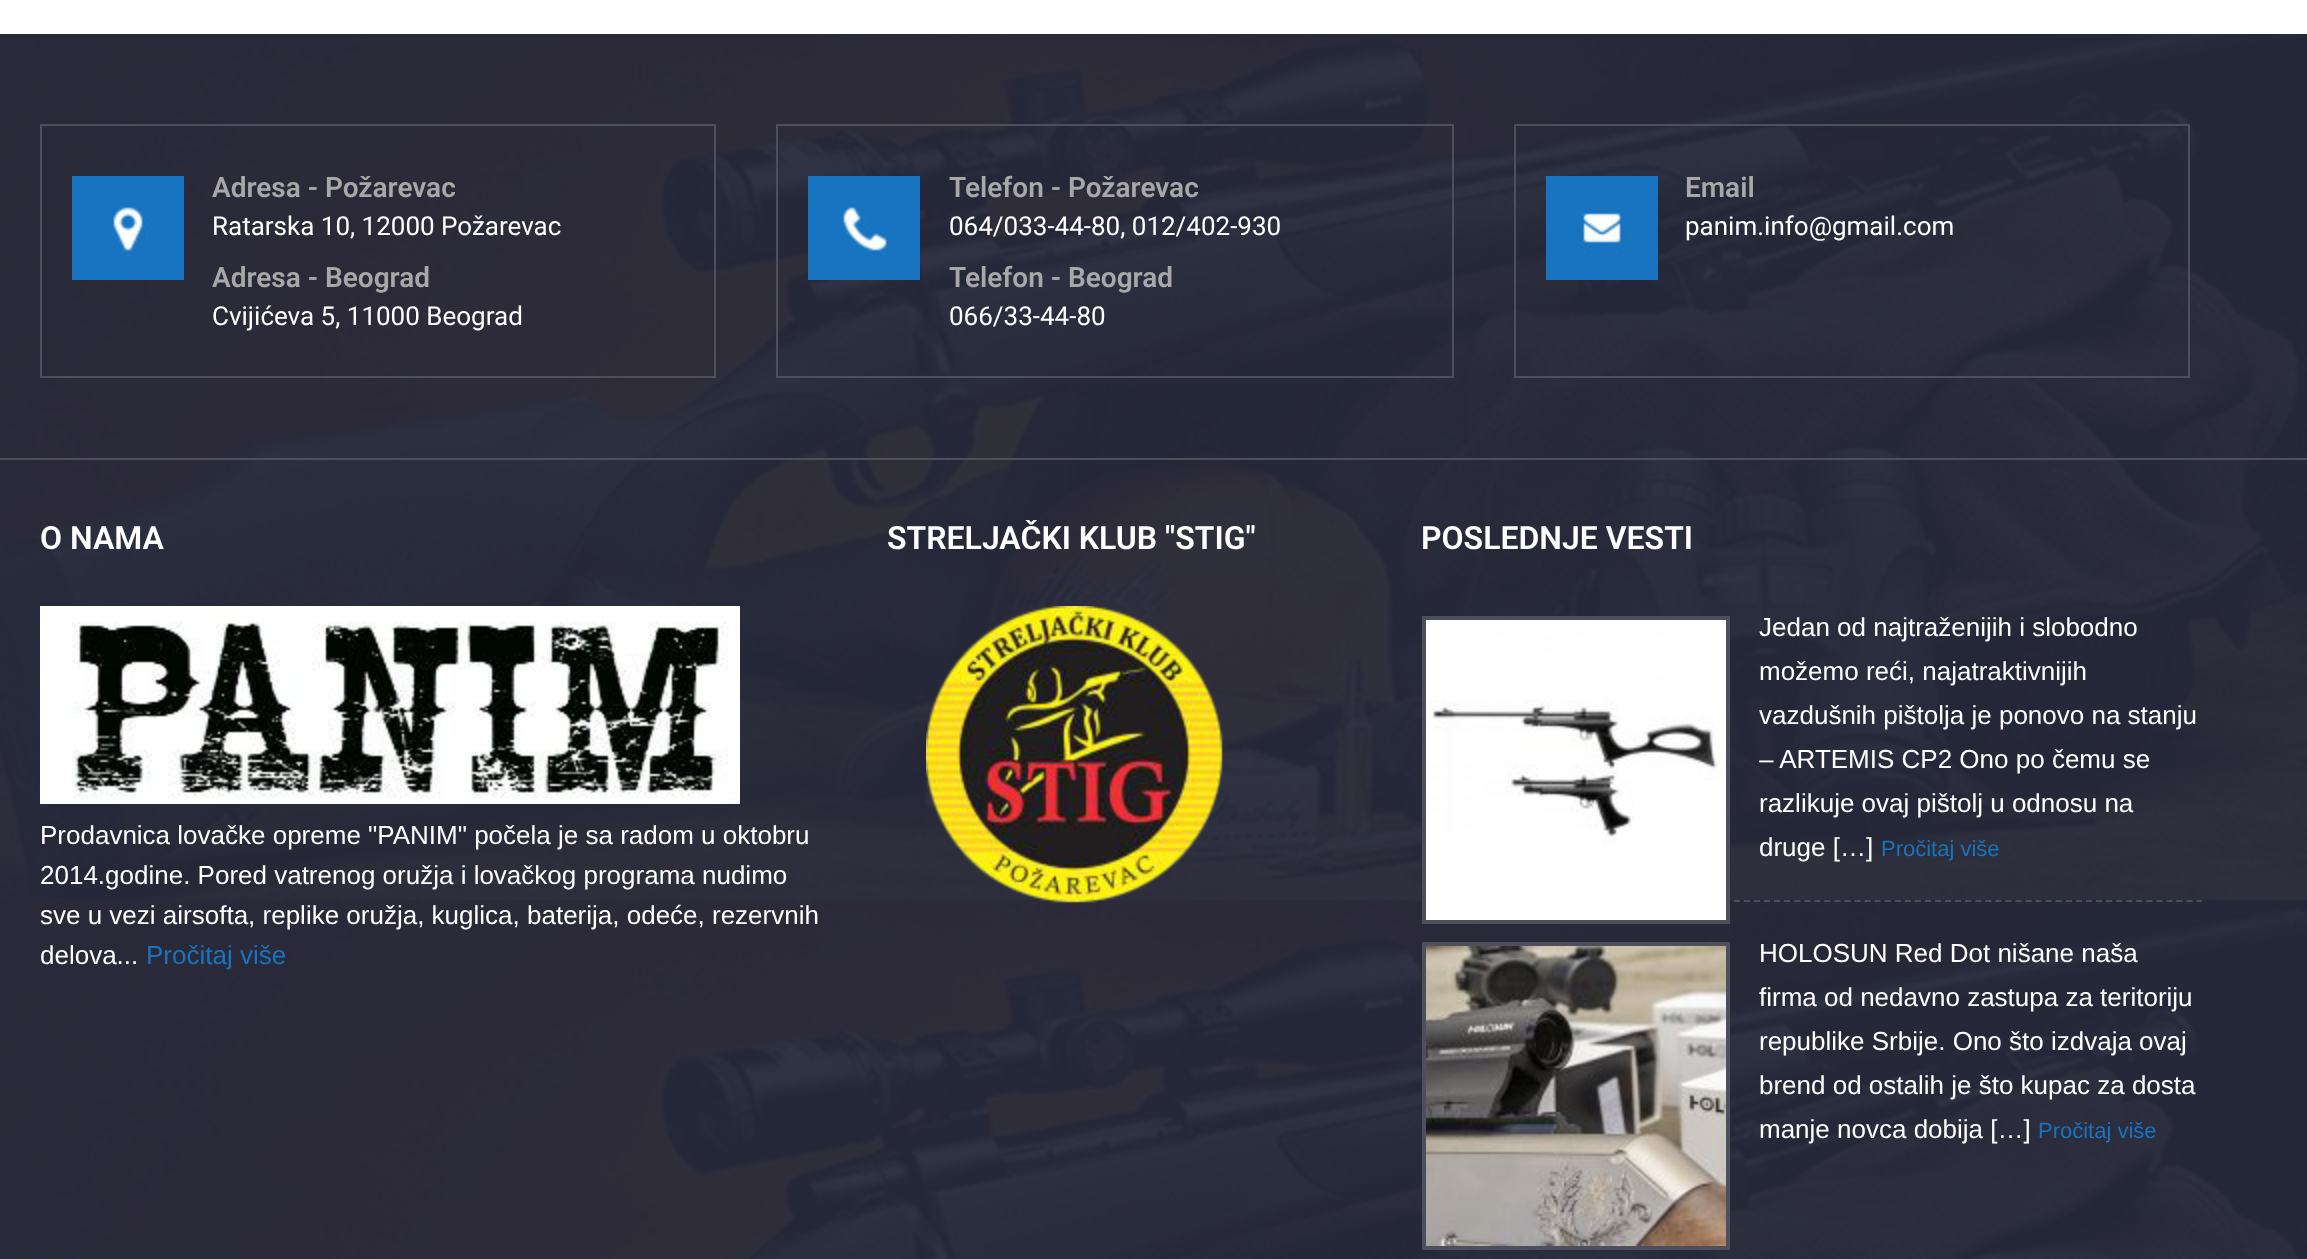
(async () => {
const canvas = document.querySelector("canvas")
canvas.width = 2307
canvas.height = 1259
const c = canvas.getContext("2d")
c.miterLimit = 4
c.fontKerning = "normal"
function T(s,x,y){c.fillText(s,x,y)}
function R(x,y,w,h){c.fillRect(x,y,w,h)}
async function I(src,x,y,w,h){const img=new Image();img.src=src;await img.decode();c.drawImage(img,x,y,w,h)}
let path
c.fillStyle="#fff"
R(0,0,2307,1259)
await I("1.png",0,34,2307,1225)
c.fillStyle="#4d4f5b"
R(0,458,2307,2)
c.strokeStyle="#4d4f5b"
c.lineWidth=2
c.strokeRect(41,125,674,252)
await I("2.png",72,176,112,104)
c.font="600 28px Roboto"
c.fillStyle="#a8a8a8"
T("Adresa - Požarevac",212,197)
c.font="26px Roboto"
c.fillStyle="#fff"
T("Ratarska 10, 12000 Požarevac",212,235)
c.font="600 28px Roboto"
c.fillStyle="#a8a8a8"
T("Adresa - Beograd",212,287)
c.font="26px Roboto"
c.fillStyle="#fff"
T("Cvijićeva 5, 11000 Beograd",212,325)
c.strokeRect(777,125,676,252)
await I("3.png",808,176,112,104)
c.font="600 28px Roboto"
c.fillStyle="#a8a8a8"
T("Telefon - Požarevac",949,197)
c.font="26px Roboto"
c.fillStyle="#fff"
T("064/033-44-80, 012/402-930",949,235)
c.font="600 28px Roboto"
c.fillStyle="#a8a8a8"
T("Telefon - Beograd",949,287)
c.font="26px Roboto"
c.fillStyle="#fff"
T("066/33-44-80",949,325)
c.strokeRect(1515,125,674,252)
await I("4.png",1546,176,112,104)
c.font="600 28px Roboto"
c.fillStyle="#a8a8a8"
T("Email",1685,197)
c.font="26px Roboto"
c.fillStyle="#fff"
T("panim.info@gmail.com",1685,235)
c.font="600 32px Roboto"
T("O NAMA",40,549)
await I("5.png",40,606,700,198)
c.font="26px Liberation Sans"
T("Prodavnica lovačke opreme \"PANIM\" počela je sa radom u oktobru",40,844)
T("2014.godine. Pored vatrenog oružja i lovačkog programa nudimo",40,884)
T("sve u vezi airsofta, replike oružja, kuglica, baterija, odeće, rezervnih",40,924)
T("delova...",40,964)
c.fillStyle="#1874c1"
T("Pročitaj više",146,964)
c.font="600 32px Roboto"
c.fillStyle="#fff"
T("STRELJAČKI KLUB \"STIG\"",887,549)
await I("6.png",926,606,297,297)
T("POSLEDNJE VESTI",1421,549)
path = new Path2D("M1422 901h780")
c.setLineDash([6,4.06])
c.stroke(path)
c.lineWidth=4
c.setLineDash([])
c.strokeRect(1424,618,304,304)
await I("7.png",1426,620,300,300)
c.font="26px Liberation Sans"
T("Jedan od najtraženijih i slobodno",1759,636)
T("možemo reći, najatraktivnijih",1759,680)
T("vazdušnih pištolja je ponovo na stanju",1759,724)
T("– ARTEMIS CP2 Ono po čemu se",1759,768)
T("razlikuje ovaj pištolj u odnosu na",1759,812)
T("druge […]",1759,856)
c.font="22px Liberation Sans"
c.fillStyle="#1874c1"
T("Pročitaj više",1881,856)
c.strokeRect(1424,944,304,304)
await I("8.png",1426,946,300,300)
c.font="26px Liberation Sans"
c.fillStyle="#fff"
T("HOLOSUN Red Dot nišane naša",1759,962)
T("firma od nedavno zastupa za teritoriju",1759,1006)
T("republike Srbije. Ono što izdvaja ovaj",1759,1050)
T("brend od ostalih je što kupac za dosta",1759,1094)
T("manje novca dobija […]",1759,1138)
c.font="22px Liberation Sans"
c.fillStyle="#1874c1"
T("Pročitaj više",2038,1138)
})()
